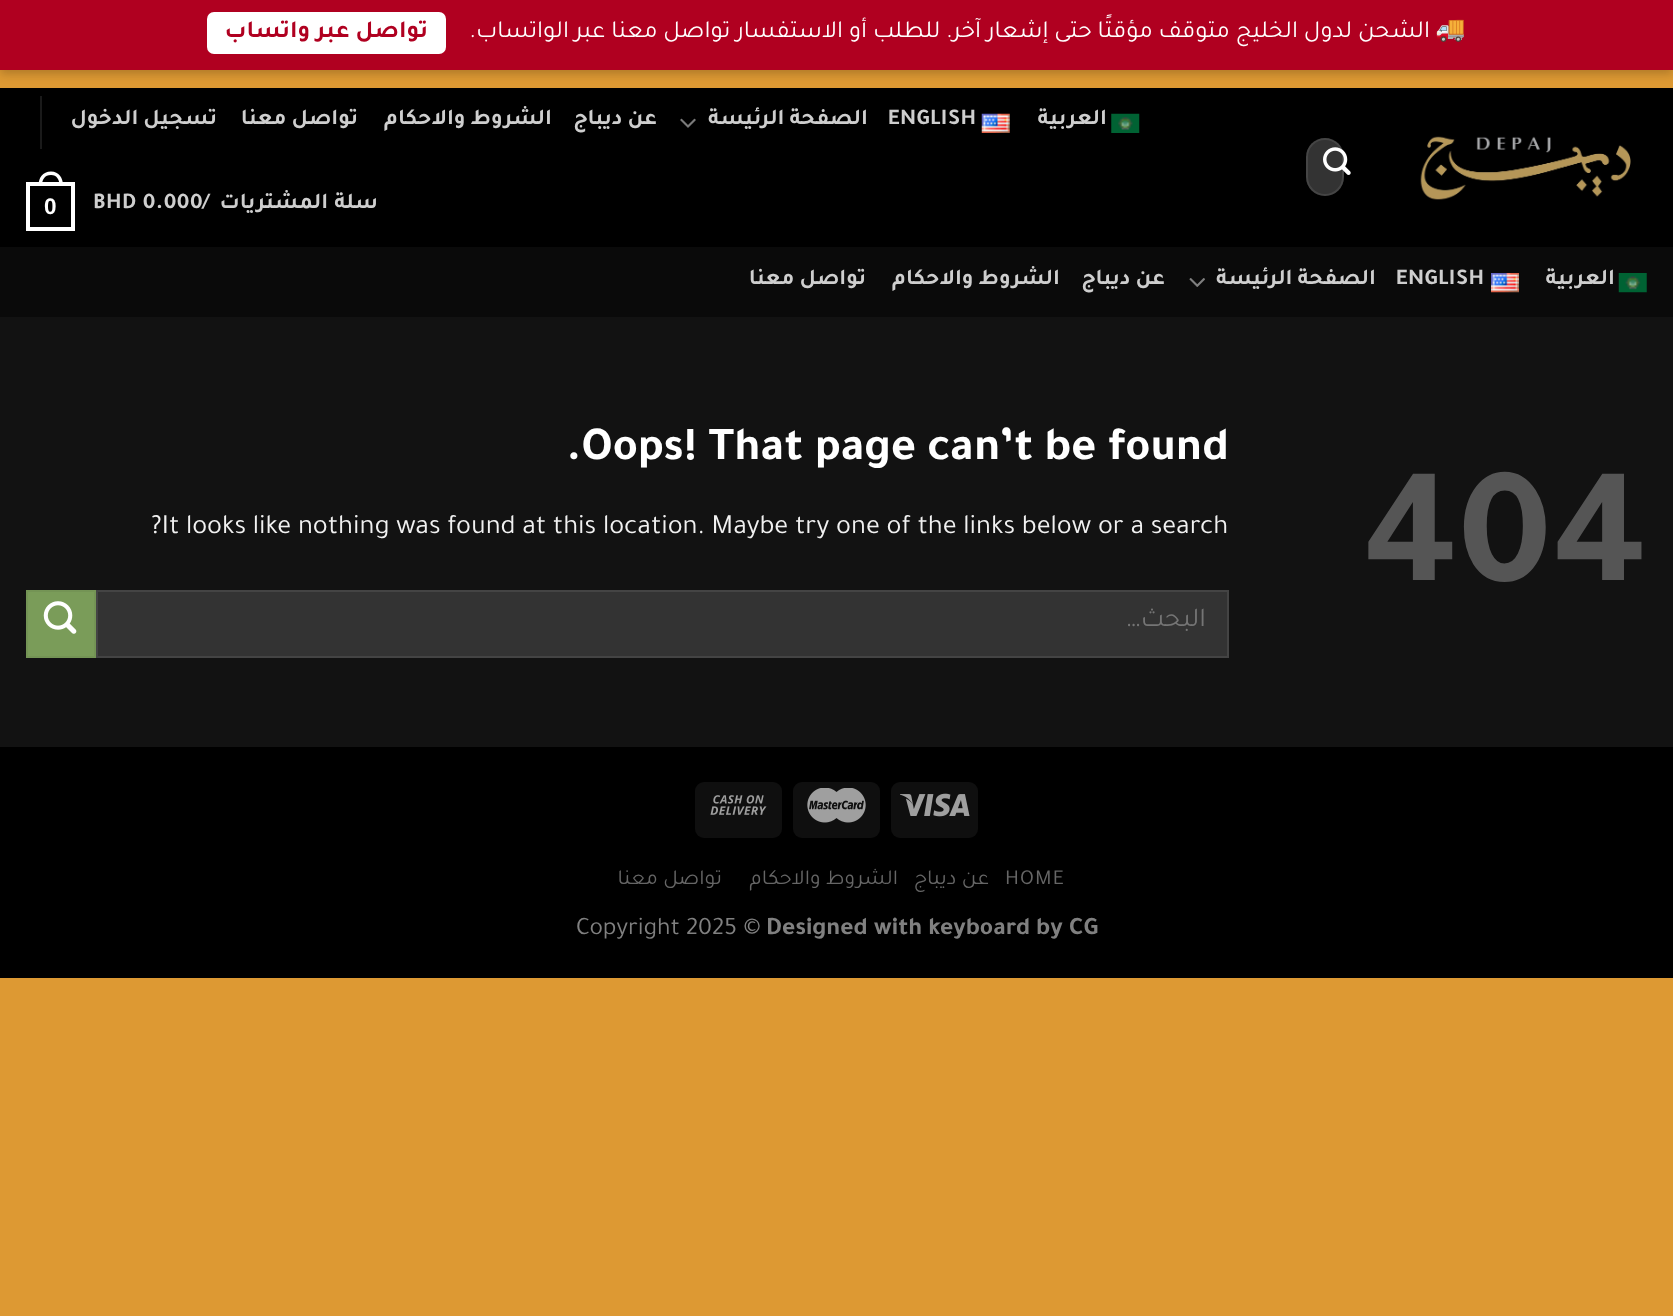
(async () => {
const canvas = document.querySelector("canvas")
canvas.width = 1673
canvas.height = 1316
const c = canvas.getContext("2d")
c.miterLimit = 4
c.fontKerning = "normal"
function T(s,x,y){c.fillText(s,x,y)}
function R(x,y,w,h){c.fillRect(x,y,w,h)}
function Q(x,y,w,h,r){c.beginPath();c.roundRect(x,y,w,h,r);c.fill()}
async function I(src,x,y,w,h){const img=new Image();img.src=src;await img.decode();c.drawImage(img,x,y,w,h)}
let path
c.fillStyle="#d93"
R(0,0,1673,1316)
c.fillStyle="#000"
R(0,88,1673,159)
c.fillStyle="#00000033"
c.filter="blur(5px)"
c.beginPath()
c.rect(0,4,1673,70)
c.fill()
c.filter="none"
c.fillStyle="#b00020"
R(0,0,1673,70)
c.direction="rtl"
c.font="24.5px Noto Color Emoji"
c.fillStyle="#fff"
T("🚚",1466,37)
c.font="24.5px Tajawal"
T("الشحن لدول الخليج متوقف مؤقتًا حتى إشعار آخر. للطلب أو الاستفسار تواصل معنا عبر الواتساب.",1430,37)
Q(207,12,239,42,7)
c.font="bold 24.5px Tajawal"
c.fillStyle="#b00020"
T("تواصل عبر واتساب",428,37)
c.fillStyle="#121212"
R(0,317,1673,430)
await I("1.png",1420,136,211,64)
c.fillStyle="#333"
Q(1306,138,38,58,19)
c.beginPath()
c.roundRect(1307,139,36,56,18)
c.strokeStyle="#ffffff17"
c.lineWidth=2
c.stroke()
await I("2.png",1323,147,28,28)
await I("3.png",1111,113,29,20)
c.letterSpacing="0.5px"
c.font="bold 22.5px Tajawal"
c.fillStyle="#cecece"
T("العربية",1107,124)
await I("4.png",981,113,29,20)
c.direction="ltr"
T("ENGLISH",888,124)
c.wordSpacing="-1px"
c.direction="rtl"
T("الصفحة الرئيسة",868,124)
await I("5.png",680,118,16,10)
T("عن ديباج",657,124)
T("الشروط والاحكام",552,124)
T("تواصل معنا",358,124)
T("تسجيل الدخول",217,124)
c.fillStyle="#1a1a1a"
R(40,96,2,53)
c.wordSpacing="0px"
c.fillStyle="#cecece"
T("سلة المشتريات",378,208)
c.direction="ltr"
T("/",202,208)
T("BHD 0.000",93,208)
c.strokeStyle="#fff"
c.lineWidth=4
c.strokeRect(28,184,45,45)
c.fillStyle="#fff"
path = new Path2D("M51 171.5c8 0 12 6.5 12 14h-24.5c0-7.5 4-14 12.5-14zm0 3.5c6 0 8.5 5 8.5 10.5h-17.5c0-5.5 2.5-10.5 9-10.5z")
c.fill(path,"evenodd")
c.font="bold 22.5px Liberation Sans"
T("0",44,214)
c.fillStyle="#0a0a0a"
R(0,247,1673,70)
await I("6.png",1618,273,29,20)
c.direction="rtl"
c.font="bold 22.5px Tajawal"
c.fillStyle="#cecece"
T("العربية",1615,284)
await I("7.png",1491,273,28,20)
c.direction="ltr"
T("ENGLISH",1396,284)
c.wordSpacing="-1px"
c.direction="rtl"
T("الصفحة الرئيسة",1376,284)
await I("8.png",1189,278,16,9)
T("عن ديباج",1165,284)
T("الشروط والاحكام",1060,284)
T("تواصل معنا",866,284)
c.letterSpacing="0px"
c.wordSpacing="0px"
c.direction="ltr"
c.font="bold 168px Tajawal"
c.fillStyle="#555"
T("404",1363,580)
c.font="bold 47.6px Tajawal"
c.fillStyle="#fff"
T(".Oops! That page can’t be found",566,459)
c.font="28px Tajawal"
c.fillStyle="#f1f1f1"
T("?It looks like nothing was found at this location. Maybe try one of the links below or a search",151,533)
c.fillStyle="#333"
c.beginPath()
c.rect(97,591,1131,66)
c.fill()
c.strokeStyle="#444"
c.lineWidth=2
c.stroke()
c.direction="rtl"
c.font="27px Tajawal"
c.fillStyle="#757575"
T("البحث…",1206,626)
c.fillStyle="#7a9c59"
c.beginPath()
c.rect(27,591,68,66)
c.fill()
c.strokeStyle="#749455"
c.stroke()
await I("9.png",43,601,34,33)
c.fillStyle="#000"
R(0,747,1673,231)
c.fillStyle="#0f0f0f"
Q(891,782,87,56,9)
await I("10.png",900,793,70,24)
Q(793,782,87,56,9)
await I("11.png",807,788,59,35)
Q(695,782,87,56,9)
await I("12.png",710,795,57,20)
c.letterSpacing="1.1px"
c.direction="ltr"
c.font="21.5px Tajawal"
c.fillStyle="#666"
T("HOME",1005,884)
c.wordSpacing="-1px"
c.direction="rtl"
T("عن ديباج",989,884)
T("الشروط والاحكام",898,884)
T("تواصل معنا",722,884)
c.letterSpacing="0px"
c.wordSpacing="0px"
c.direction="ltr"
c.font="bold 25.25px Tajawal"
c.fillStyle="#808080"
T("Designed with keyboard by CG",766,934)
c.font="25.25px Tajawal"
T("Copyright 2025 ©",576,934)
})()
